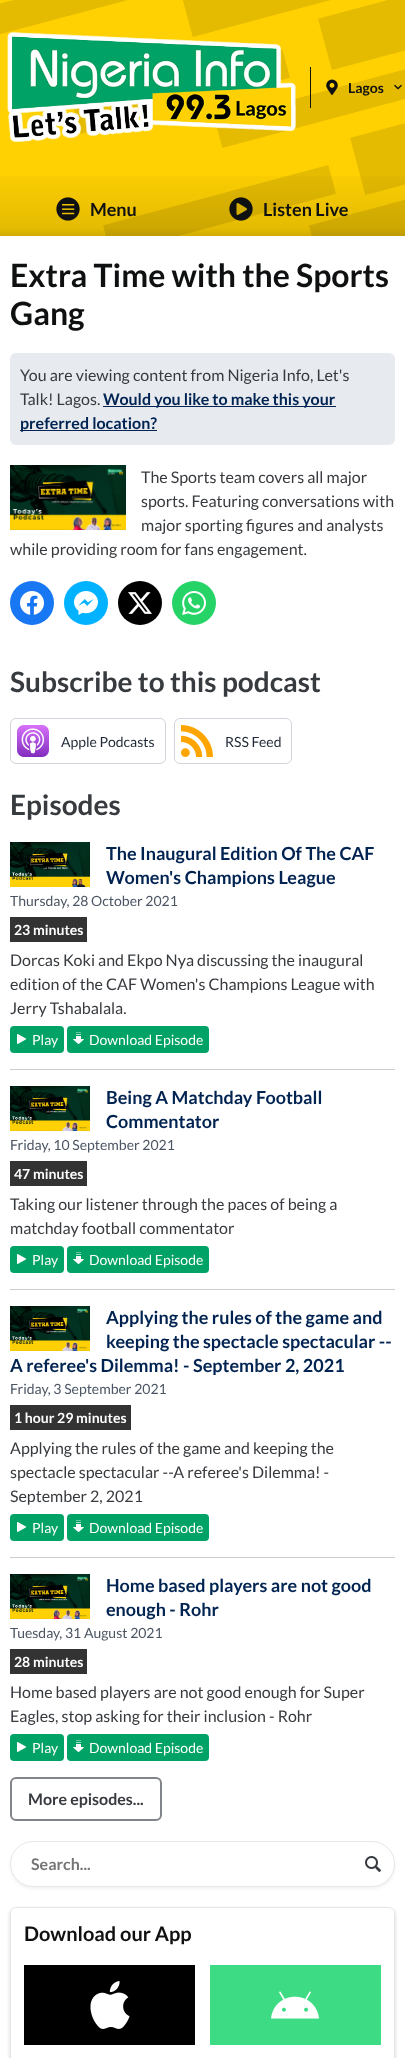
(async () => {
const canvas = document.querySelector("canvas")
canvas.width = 405
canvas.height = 2058
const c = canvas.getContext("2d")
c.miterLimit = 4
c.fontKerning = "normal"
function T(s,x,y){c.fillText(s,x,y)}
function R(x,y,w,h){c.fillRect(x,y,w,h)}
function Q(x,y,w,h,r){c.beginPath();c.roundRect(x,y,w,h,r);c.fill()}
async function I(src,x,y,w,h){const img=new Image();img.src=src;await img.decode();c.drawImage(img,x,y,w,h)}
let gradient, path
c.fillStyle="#fff"
R(0,0,405,2058)
c.fillStyle="#ffd102"
R(0,0,405,236)
await I("1.png",0,0,405,236)
await I("2.png",7,32,289,110)
c.fillStyle="#0f1011"
R(310,67,1,41)
await I("3.png",326,79,12,16)
c.font="bold 14px Lato"
T("Lagos",348,93)
await I("4.png",394,84,8,6)
gradient = c.createLinearGradient(203,162,203,236)
gradient.addColorStop(0,"#00000000")
gradient.addColorStop(.89,"#0000001a")
gradient.addColorStop(1,"#0000002e")
c.fillStyle = gradient
R(0,176,405,60)
await I("5.png",56,197,24,24)
c.font="bold 18px Lato"
c.fillStyle="#0f1011"
T("Menu",90,216)
await I("6.png",229,197,24,24)
T("Listen Live",263,216)
c.font="bold 32px Lato"
T("Extra Time with the Sports",10,287)
T("Gang",10,325)
c.fillStyle="#e7eaef"
Q(10,353,385,92,6)
c.font="16px Lato"
c.fillStyle="#373a3e"
T("You are viewing content from Nigeria Info, Let's",20,381)
T("Talk! Lagos.",20,405)
c.fillStyle="#002351"
R(103,406,233,1)
c.font="bold 16px Lato"
T("Would you like to make this your",103,405)
R(20,430,137,1)
T("preferred location?",20,429)
await I("7.png",10,465,116,65)
c.font="16px Lato"
c.fillStyle="#373a3e"
T("The Sports team covers all major",141,483)
T("sports. Featuring conversations with",141,507)
T("major sporting figures and analysts",141,531)
T("while providing room for fans engagement.",10,555)
c.fillStyle="#1877f2"
c.beginPath()
c.arc(32,603,22,0,7)
c.fill()
await I("8.png",20,591,24,24)
c.fillStyle="#00b2ff"
c.beginPath()
c.arc(86,603,22,0,7)
c.fill()
await I("9.png",74,591,24,24)
c.fillStyle="#000"
c.beginPath()
c.arc(140,603,22,0,7)
c.fill()
await I("10.png",128,592,24,22)
c.fillStyle="#25d366"
c.beginPath()
c.arc(194,603,22,0,7)
c.fill()
await I("11.png",182,591,24,24)
c.font="bold 28px Lato"
c.fillStyle="#373a3e"
T("Subscribe to this podcast",10,692)
c.beginPath()
c.roundRect(10.5,718.5,155,45,5.5)
c.strokeStyle="#d1d5db"
c.stroke()
await I("12.png",17,725,32,32)
c.font="14px Lato"
c.fillStyle="#1f2937"
T("Apple Podcasts",61,747)
c.beginPath()
c.roundRect(174.5,718.5,117,45,5.5)
c.stroke()
await I("13.png",181,725,32,32)
T("RSS Feed",225,747)
c.font="bold 28px Lato"
c.fillStyle="#373a3e"
T("Episodes",10,815)
await I("14.png",10,842,80,45)
c.font="bold 18px Lato"
c.fillStyle="#002351"
T("The Inaugural Edition Of The CAF",106,860)
T("Women's Champions League",106,884)
c.font="14px Lato"
c.fillStyle="#4b5563"
T("Thursday, 28 October 2021",10,906)
c.fillStyle="#333"
R(10,917,77,25)
c.font="bold 14px Lato"
c.fillStyle="#fff"
T("23 minutes",14,935)
c.font="16px Lato"
c.fillStyle="#373a3e"
T("Dorcas Koki and Ekpo Nya discussing the inaugural",10,966)
T("edition of the CAF Women's Champions League with",10,990)
T("Jerry Tshabalala.",10,1014)
c.fillStyle="#00a365"
Q(10,1026,54,27,4)
await I("15.png",17,1034,10,10)
c.font="14px Lato"
c.fillStyle="#fff"
T("Play",32,1045)
c.fillStyle="#00a365"
Q(67,1026,142,27,4)
await I("16.png",73,1032,11,12)
c.fillStyle="#fff"
T("Download Episode",89,1045)
c.fillStyle="#ccc"
R(10,1069,385,1)
await I("17.png",10,1086,80,45)
c.font="bold 18px Lato"
c.fillStyle="#002351"
T("Being A Matchday Football",106,1104)
T("Commentator",106,1128)
c.font="14px Lato"
c.fillStyle="#4b5563"
T("Friday, 10 September 2021",10,1150)
c.fillStyle="#333"
R(10,1161,77,25)
c.font="bold 14px Lato"
c.fillStyle="#fff"
T("47 minutes",14,1179)
c.font="16px Lato"
c.fillStyle="#373a3e"
T("Taking our listener through the paces of being a",10,1210)
T("matchday football commentator",10,1234)
c.fillStyle="#00a365"
Q(10,1246,54,27,4)
await I("15.png",17,1254,10,10)
c.font="14px Lato"
c.fillStyle="#fff"
T("Play",32,1265)
c.fillStyle="#00a365"
Q(67,1246,142,27,4)
await I("16.png",73,1252,11,12)
c.fillStyle="#fff"
T("Download Episode",89,1265)
c.fillStyle="#ccc"
R(10,1289,385,1)
await I("17.png",10,1306,80,45)
c.font="bold 18px Lato"
c.fillStyle="#002351"
T("Applying the rules of the game and",106,1324)
T("keeping the spectacle spectacular --",106,1348)
T("A referee's Dilemma! - September 2, 2021",10,1372)
c.font="14px Lato"
c.fillStyle="#4b5563"
T("Friday, 3 September 2021",10,1394)
c.fillStyle="#333"
R(10,1405,121,25)
c.font="bold 14px Lato"
c.fillStyle="#fff"
T("1 hour 29 minutes",14,1423)
c.font="16px Lato"
c.fillStyle="#373a3e"
T("Applying the rules of the game and keeping the",10,1454)
T("spectacle spectacular --A referee's Dilemma! -",10,1478)
T("September 2, 2021",10,1502)
c.fillStyle="#00a365"
Q(10,1514,54,27,4)
await I("15.png",17,1522,10,10)
c.font="14px Lato"
c.fillStyle="#fff"
T("Play",32,1533)
c.fillStyle="#00a365"
Q(67,1514,142,27,4)
await I("16.png",73,1520,11,12)
c.fillStyle="#fff"
T("Download Episode",89,1533)
c.fillStyle="#ccc"
R(10,1557,385,1)
await I("18.png",10,1574,80,45)
c.font="bold 18px Lato"
c.fillStyle="#002351"
T("Home based players are not good",106,1592)
T("enough - Rohr",106,1616)
c.font="14px Lato"
c.fillStyle="#4b5563"
T("Tuesday, 31 August 2021",10,1638)
c.fillStyle="#333"
R(10,1649,77,25)
c.font="bold 14px Lato"
c.fillStyle="#fff"
T("28 minutes",14,1667)
c.font="16px Lato"
c.fillStyle="#373a3e"
T("Home based players are not good enough for Super",10,1698)
T("Eagles, stop asking for their inclusion - Rohr",10,1722)
c.fillStyle="#00a365"
Q(10,1734,54,27,4)
await I("15.png",17,1742,10,10)
c.font="14px Lato"
c.fillStyle="#fff"
T("Play",32,1753)
c.fillStyle="#00a365"
Q(67,1734,142,27,4)
await I("16.png",73,1740,11,12)
c.fillStyle="#fff"
T("Download Episode",89,1753)
c.beginPath()
c.roundRect(11,1778,150,42,5)
c.strokeStyle="#818488"
c.lineWidth=2
c.stroke()
c.font="bold 16px Lato"
c.fillStyle="#373a3e"
T("More episodes...",28,1805)
c.fillStyle="#0000000d"
c.filter="blur(1.5px)"
c.beginPath()
c.roundRect(10,1843,385,46,23)
c.fill()
c.filter="none"
c.fillStyle="#fff"
c.beginPath()
c.roundRect(10.5,1841.5,384,45,22.5)
c.fill()
c.strokeStyle="#e8e6e6"
c.lineWidth=1
c.stroke()
c.fillStyle="#757575"
T("Search...",31,1870)
await I("19.png",365,1856,16,16)
c.save()
path = new Path2D("M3 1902h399v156h-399zm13 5h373c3.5 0 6 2.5 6 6v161c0 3.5-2.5 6-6 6h-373c-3.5 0-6-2.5-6-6v-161c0-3.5 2.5-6 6-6z")
c.clip(path,"evenodd")
c.fillStyle="#0000001a"
c.filter="blur(1.5px)"
c.beginPath()
c.roundRect(9,1908,387,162,7)
c.fill()
c.filter="none"
c.restore()
c.beginPath()
c.roundRect(10.5,1907.5,384,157,5.5)
c.stroke()
c.font="bold 20px Lato"
c.fillStyle="#0f1011"
T("Download our App",24,1941)
c.fillStyle="#000"
R(24,1965,171,80)
await I("20.png",90,1981,40,48)
c.fillStyle="#3ddc84"
R(210,1965,171,80)
await I("21.png",271,1991,48,28)
})()
